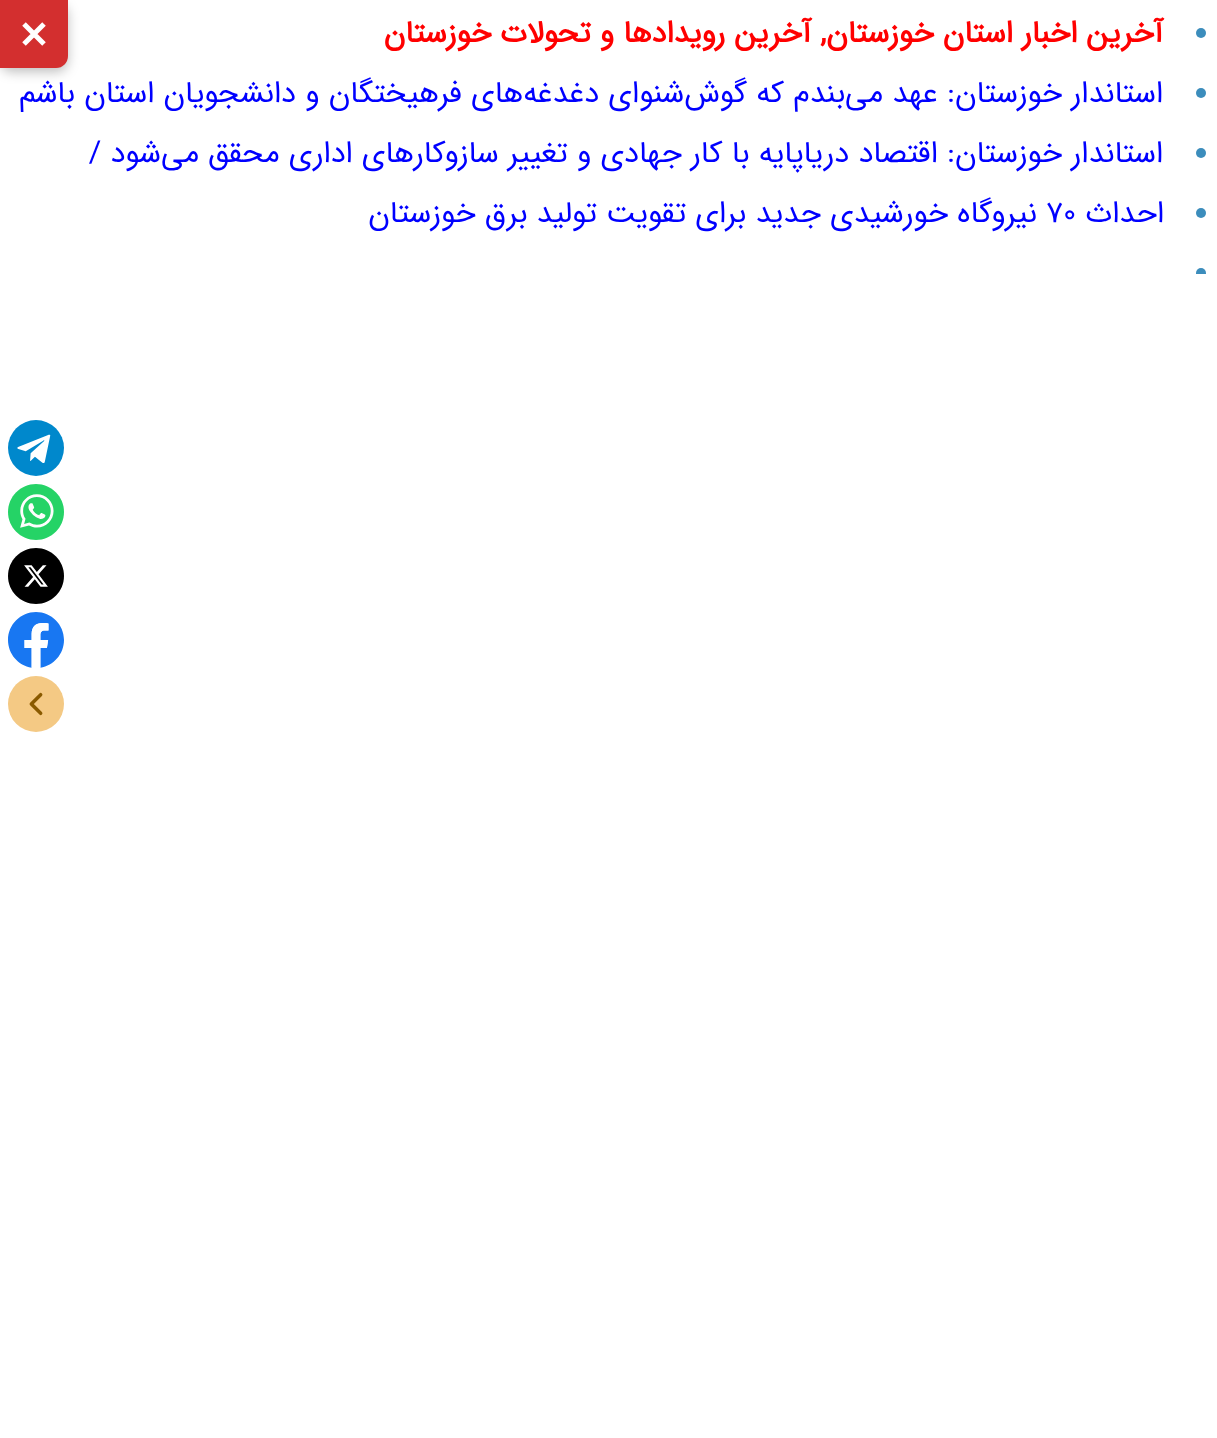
(async () => {
const canvas = document.querySelector("canvas")
canvas.width = 1217
canvas.height = 1438
const c = canvas.getContext("2d")
c.miterLimit = 4
c.fontKerning = "normal"
function T(s,x,y){c.fillText(s,x,y)}
function R(x,y,w,h){c.fillRect(x,y,w,h)}
async function I(src,x,y,w,h){const img=new Image();img.src=src;await img.decode();c.drawImage(img,x,y,w,h)}
let path
c.fillStyle="#fff"
R(0,0,1217,1438)
c.fillStyle="#00000040"
c.filter="blur(6px)"
c.beginPath()
c.roundRect(0,4,68,68,12)
c.fill()
c.filter="none"
c.fillStyle="#d32f2f"
c.beginPath()
c.roundRect(0,0,68,68,[0,0,12,0])
c.fill()
path = new Path2D("M44 24l-20 20m0-20l20 20")
c.strokeStyle="#fff"
c.lineWidth=5
c.stroke(path)
c.fillStyle="#3c8dbc"
c.beginPath()
c.arc(1201,33,5,0,7)
c.fill()
c.direction="rtl"
c.font="bold 30.4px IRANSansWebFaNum"
c.fillStyle="#f00"
T("آخرین اخبار استان خوزستان, آخرین رویدادها و تحولات خوزستان",1163,42)
c.fillStyle="#3c8dbc"
c.beginPath()
c.arc(1201,93,5,0,7)
c.fill()
c.font="30.4px IRANSansWebFaNum"
c.fillStyle="#00f"
T("استاندار خوزستان: عهد می‌بندم که گوش‌شنوای دغدغه‌های فرهیختگان و دانشجویان استان باشم",1163,102)
c.fillStyle="#3c8dbc"
c.beginPath()
c.arc(1201,153,5,0,7)
c.fill()
c.fillStyle="#00f"
T("استاندار خوزستان: اقتصاد دریاپایه با کار جهادی و تغییر سازوکارهای اداری محقق می‌شود /",1163,162)
c.fillStyle="#3c8dbc"
c.beginPath()
c.arc(1201,213,5,0,7)
c.fill()
c.fillStyle="#00f"
T("احداث",1164,222)
c.direction="ltr"
T("۷۰",1046,222)
c.direction="rtl"
T("نیروگاه خورشیدی جدید برای تقویت تولید برق خوزستان",1037,222)
c.save()
c.beginPath()
c.rect(0,0,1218,274)
c.clip()
c.fillStyle="#3c8dbc"
c.beginPath()
c.arc(1201,273,5,0,7)
c.fill()
c.restore()
await I("1.png",8,420,56,56)
await I("2.png",8,484,56,56)
await I("3.png",8,548,56,56)
await I("4.png",8,612,56,56)
await I("5.png",8,676,56,56)
})()
